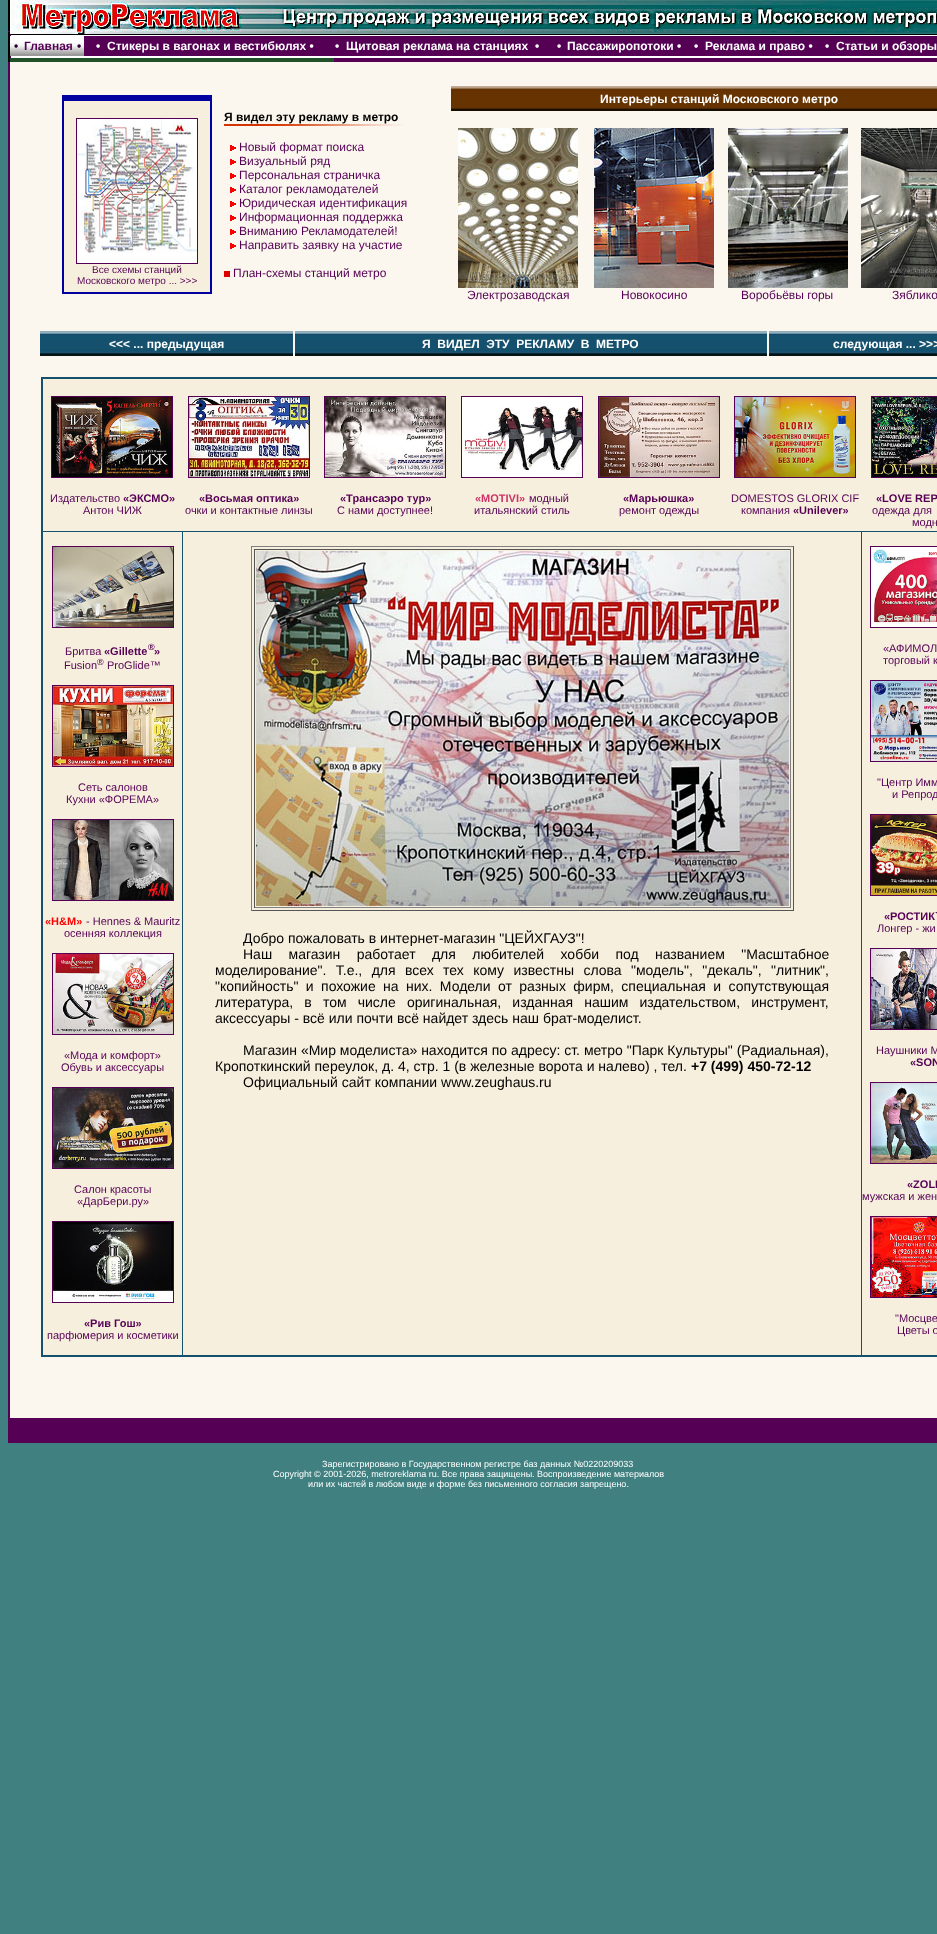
(async () => {
const canvas = document.querySelector("canvas")
canvas.width = 937
canvas.height = 1934
const c = canvas.getContext("2d")
c.miterLimit = 4
c.fontKerning = "normal"
function T(s,x,y){c.fillText(s,x,y)}
function R(x,y,w,h){c.fillRect(x,y,w,h)}
async function I(src,x,y,w,h){const img=new Image();img.src=src;await img.decode();c.drawImage(img,x,y,w,h)}
c.fillStyle="#408080"
R(0,0,937,1934)
c.fillStyle="#fbf7ee"
R(10,62,927,1356)
c.fillStyle="#000"
R(8,0,2,62)
c.fillStyle="#570155"
R(8,31,2,1)
c.fillStyle="#505"
R(84,36,853,20)
await I("1.png",10,0,927,34)
c.fillStyle="#000"
R(10,34,927,1)
c.fillStyle="#fff"
R(10,35,927,1)
c.fillStyle="#570155"
R(10,34,1,2)
await I("2.png",10,36,74,20)
c.font="bold 12px Liberation Sans"
c.fillStyle="#2b002b"
T("•",14,50)
c.fillStyle="#505"
T("Главная",24,50)
c.fillStyle="#2b002b"
T("•",77,50)
c.fillStyle="#fff"
T("•",96,50)
T("Стикеры в вагонах и вестибюлях •",107,50)
T("•",335,50)
T("Щитовая реклама на станциях  •",346,50)
T("•",557,50)
T("Пассажиропотоки •",567,50)
T("•",694,50)
T("Реклама и право •",705,50)
T("•",825,50)
T("Статьи и обзоры",836,50)
R(10,56,927,2)
c.fillStyle="#570155"
R(10,56,1,2)
c.fillStyle="#215129"
R(10,58,324,4)
c.fillStyle="#570155"
R(334,58,603,4)
c.fillStyle="#505"
R(8,62,2,1381)
c.fillStyle="#0000a0"
R(62,95,150,199)
c.fillStyle="#f7efdd"
R(64,101,146,191)
c.strokeStyle="#505"
c.strokeRect(76.5,118.5,121,145)
await I("3.png",77,119,120,144)
c.font="10px Liberation Sans"
c.fillStyle="#505"
T("Все схемы станций",92,273)
T("Московского метро ... >>>",77,284)
c.font="bold 12px Liberation Sans"
c.fillStyle="#000"
T("Я видел эту рекламу в метро",224,121)
await I("4.png",224,124,180,2)
await I("5.png",230,145,6,6)
c.font="12px Liberation Sans"
c.fillStyle="#505"
T("Новый формат поиска",239,151)
await I("5.png",230,159,6,6)
T("Визуальный ряд",239,165)
await I("5.png",230,173,6,6)
T("Персональная страничка",239,179)
await I("5.png",230,187,6,6)
T("Каталог рекламодателей",239,193)
await I("5.png",230,201,6,6)
T("Юридическая идентификация",239,207)
await I("5.png",230,215,6,6)
T("Информационная поддержка",239,221)
await I("5.png",230,229,6,6)
T("Вниманию Рекламодателей!",239,235)
await I("5.png",230,243,6,6)
T("Направить заявку на участие",239,249)
c.fillStyle="#dc0000"
R(224,271,6,6)
c.fillStyle="#505"
T("План-схемы станций метро",233,277)
await I("6.png",451,86,486,25)
c.font="bold 12px Liberation Sans"
c.fillStyle="#fff"
T("Интерьеры станций Московского метро",600,103)
await I("7.png",458,128,120,160)
c.font="12px Liberation Sans"
c.fillStyle="#505"
T("Электрозаводская",467,299)
await I("8.png",594,128,120,160)
T("Новокосино",621,299)
await I("9.png",728,128,120,160)
T("Воробьёвы горы",741,299)
await I("10.png",861,128,76,160)
T("Зяблико",892,299)
await I("11.png",40,331,253,25)
c.font="bold 12px Liberation Sans"
c.fillStyle="#fff"
T("<<< ... предыдущая",109,348)
await I("12.png",295,331,472,25)
T("Я  ВИДЕЛ  ЭТУ  РЕКЛАМУ  В  МЕТРО",422,348)
await I("13.png",769,331,168,25)
T("следующая ... >>>",833,348)
c.fillStyle="#14516d"
R(41,377,896,980)
c.fillStyle="#f7efdd"
R(43,379,894,152)
c.strokeRect(51.5,396.5,121,81)
await I("14.png",52,397,120,80)
c.font="11px Liberation Sans"
c.fillStyle="#505"
T("Издательство",50,502)
c.font="bold 11px Liberation Sans"
T("«ЭКСМО»",123,502)
c.font="11px Liberation Sans"
T("Антон ЧИЖ",83,514)
c.strokeRect(188.5,396.5,121,81)
await I("15.png",189,397,120,80)
c.font="bold 11px Liberation Sans"
T("«Восьмая оптика»",199,502)
c.font="11px Liberation Sans"
T("очки и контактные линзы",185,514)
c.strokeRect(324.5,396.5,121,81)
await I("16.png",325,397,120,80)
c.font="bold 11px Liberation Sans"
T("«Трансаэро тур»",340,502)
c.font="11px Liberation Sans"
T("С нами доступнее!",337,514)
c.strokeRect(461.5,396.5,121,81)
await I("17.png",462,397,120,80)
c.font="bold 11px Liberation Sans"
c.fillStyle="#c36"
T("«MOTIVI»",475,502)
c.font="11px Liberation Sans"
c.fillStyle="#505"
T("модный",529,502)
T("итальянский стиль",474,514)
c.strokeRect(598.5,396.5,121,81)
await I("18.png",599,397,120,80)
c.font="bold 11px Liberation Sans"
T("«Марьюшка»",623,502)
c.font="11px Liberation Sans"
T("ремонт одежды",619,514)
c.strokeRect(734.5,396.5,121,81)
await I("19.png",735,397,120,80)
T("DOMESTOS GLORIX CIF",731,502)
T("компания",741,514)
c.font="bold 11px Liberation Sans"
T("«Unilever»",793,514)
c.strokeRect(871.5,396.5,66,81)
await I("20.png",872,397,65,80)
T("«LOVE REP",876,502)
c.font="11px Liberation Sans"
T("одежда для",872,514)
T("модн",912,526)
c.fillStyle="#f7efdd"
R(43,532,139,823)
c.strokeRect(52.5,546.5,121,81)
await I("21.png",53,547,120,80)
c.fillStyle="#505"
T("Бритва",65,655)
c.font="bold 11px Liberation Sans"
T("«Gillette",104,655)
c.font="bold 9px Liberation Sans"
T("®",148,650)
c.font="bold 11px Liberation Sans"
T("»",154,655)
c.font="11px Liberation Sans"
T("Fusion",64,669)
c.font="9px Liberation Sans"
T("®",97,665)
c.font="11px Liberation Sans"
T("ProGlide™",107,669)
c.strokeRect(52.5,685.5,121,81)
await I("22.png",53,686,120,80)
T("Сеть салонов",78,791)
T("Кухни «ФОРЕМА»",66,803)
c.strokeRect(52.5,819.5,121,81)
await I("23.png",53,820,120,80)
c.font="bold 11px Liberation Sans"
c.fillStyle="#f00"
T("«H&M»",45,925)
c.font="11px Liberation Sans"
c.fillStyle="#505"
T("- Hennes & Mauritz",86,925)
T("осенняя коллекция",64,937)
c.strokeRect(52.5,953.5,121,81)
await I("24.png",53,954,120,80)
T("«Мода и комфорт»",64,1059)
T("Обувь и аксессуары",61,1071)
c.strokeRect(52.5,1087.5,121,81)
await I("25.png",53,1088,120,80)
T("Салон красоты",74,1193)
T("«ДарБери.ру»",77,1205)
c.strokeRect(52.5,1221.5,121,81)
await I("26.png",53,1222,120,80)
c.font="bold 11px Liberation Sans"
T("«Рив Гош»",84,1327)
c.font="11px Liberation Sans"
T("парфюмерия и косметики",47,1339)
c.fillStyle="#f7efdd"
R(183,532,678,823)
c.fillStyle="#808080"
R(251,546,543,1)
c.fillStyle="#555"
R(793,546,1,365)
R(251,910,543,1)
c.fillStyle="#808080"
R(251,546,1,365)
c.fillStyle="#555"
R(254,549,537,1)
c.fillStyle="#808080"
R(790,549,1,359)
R(254,907,537,1)
c.fillStyle="#555"
R(254,549,1,359)
await I("27.png",256,551,533,355)
c.font="14px Liberation Sans"
c.fillStyle="#000"
T("Добро пожаловать в интернет-магазин \"ЦЕЙХГАУЗ\"!",243,943)
c.wordSpacing="12.5px"
T("Наш магазин работает для любителей хобби под названием \"Масштабное",243,959)
c.wordSpacing="5.5px"
T("моделирование\". Т.е., для всех тех кому известны слова \"модель\", \"декаль\", \"литник\",",215,975)
c.wordSpacing="3.5px"
T("\"копийность\" и похожие на них. Модели от разных фирм, специальная и сопутствующая",215,991)
c.wordSpacing="7.25px"
T("литература, в том числе оригинальная, изданная нашим издательством, инструмент,",215,1007)
c.wordSpacing="0px"
T("аксессуары - всё или почти всё найдет здесь наш брат-моделист.",215,1023)
T("Магазин «Мир моделиста» находится по адресу: ст. метро \"Парк Культуры\" (Радиальная),",243,1055)
T("Кропоткинский переулок, д. 4, стр. 1 (в железные ворота и налево) , тел.",215,1071)
c.font="bold 14px Liberation Sans"
T("+7 (499) 450-72-12",691,1071)
c.font="14px Liberation Sans"
T("Официальный сайт компании www.zeughaus.ru",243,1087)
c.fillStyle="#f7efdd"
R(862,532,75,823)
c.strokeRect(870.5,546.5,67,81)
await I("28.png",871,547,66,80)
c.font="11px Liberation Sans"
c.fillStyle="#505"
T("«АФИМОЛ",883,652)
T("торговый к",883,664)
c.strokeRect(870.5,680.5,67,81)
await I("29.png",871,681,66,80)
T("\"Центр Имм",877,786)
T("и Репрод",892,798)
c.strokeRect(870.5,814.5,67,81)
await I("30.png",871,815,66,80)
c.font="bold 11px Liberation Sans"
T("«РОСТИК`",884,920)
c.font="11px Liberation Sans"
T("Лонгер - жи",877,932)
c.strokeRect(870.5,948.5,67,81)
await I("31.png",871,949,66,80)
T("Наушники M",876,1054)
c.font="bold 11px Liberation Sans"
T("«SON",910,1066)
c.strokeRect(870.5,1082.5,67,81)
await I("32.png",871,1083,66,80)
T("«ZOLL",907,1188)
c.font="11px Liberation Sans"
T("мужская и жен",862,1200)
c.strokeRect(870.5,1216.5,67,81)
await I("33.png",871,1217,66,80)
T("\"Мосцве",895,1322)
T("Цветы о",897,1334)
R(10,1418,927,25)
c.font="9px Liberation Sans"
c.fillStyle="#fff"
T("Зарегистрировано в Государственном регистре баз данных №0220209033",322,1467)
T("Copyright © 2001-2026, metroreklama ru. Все права защищены. Воспроизведение материалов",273,1477)
T("или их частей в любом виде и форме без письменного согласия запрещено.",308,1487)
})()
